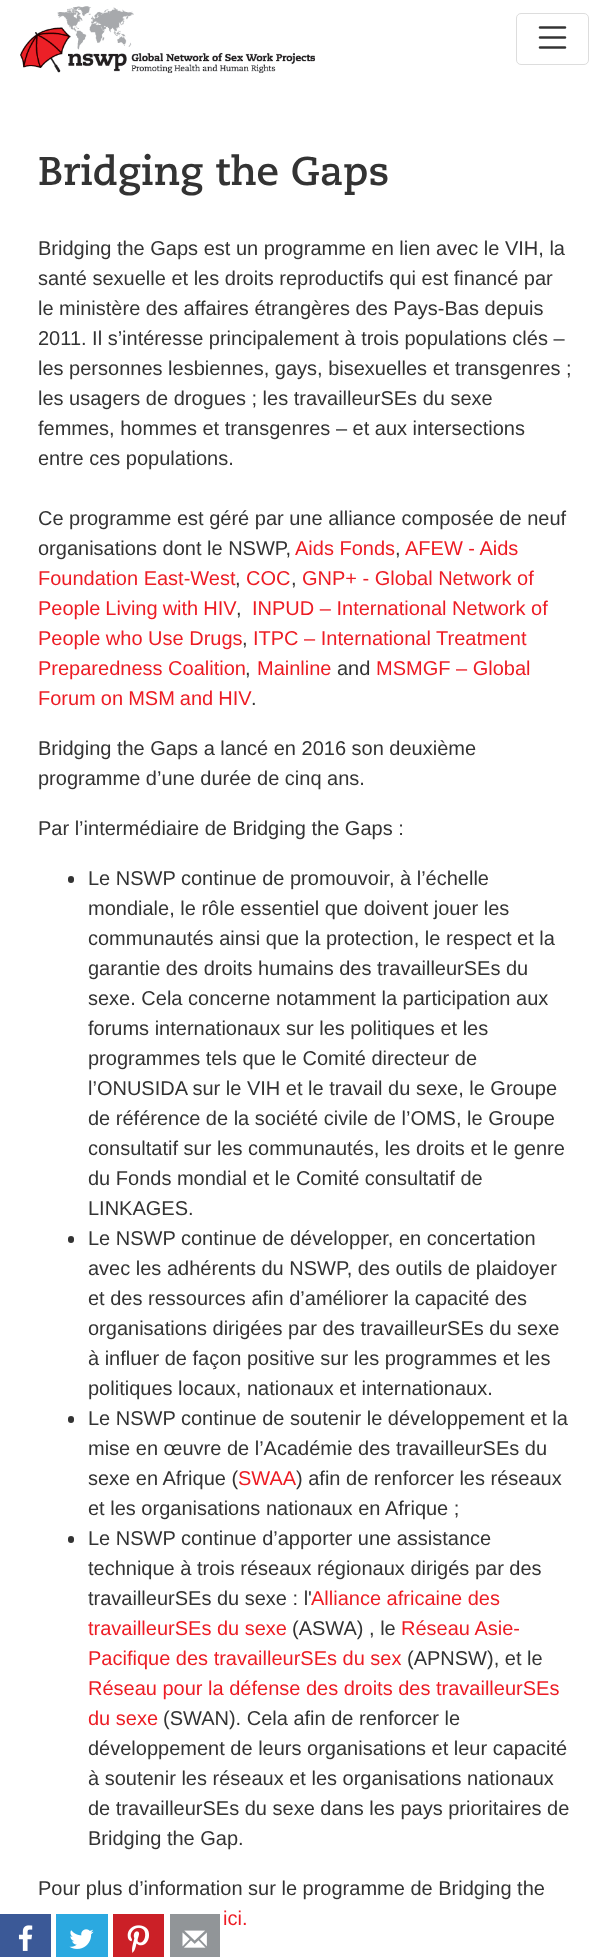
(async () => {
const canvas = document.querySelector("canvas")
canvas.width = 608
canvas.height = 1957
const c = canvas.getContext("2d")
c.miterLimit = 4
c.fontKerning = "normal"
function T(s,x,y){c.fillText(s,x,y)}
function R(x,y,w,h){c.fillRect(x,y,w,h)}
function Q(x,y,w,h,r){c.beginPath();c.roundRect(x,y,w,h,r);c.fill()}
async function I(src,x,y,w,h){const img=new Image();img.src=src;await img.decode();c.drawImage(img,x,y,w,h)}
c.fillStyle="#fff"
R(0,0,608,1957)
await I("1.png",20,6,295,67)
c.beginPath()
c.roundRect(516.5,13.5,72,51,4.5)
c.strokeStyle="#ddd"
c.stroke()
await I("2.png",538,26,29,23)
c.font="bold 40px 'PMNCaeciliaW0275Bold'"
c.fillStyle="#333"
T("Bridging the Gaps",38,185)
c.font="20px Liberation Sans"
T("Bridging the Gaps est un programme en lien avec le VIH, la",38,255)
T("santé sexuelle et les droits reproductifs qui est financé par",38,285)
T("le ministère des affaires étrangères des Pays-Bas depuis",38,315)
T("2011. Il s’intéresse principalement à trois populations clés –",38,345)
T("les personnes lesbiennes, gays, bisexuelles et transgenres ;",38,375)
T("les usagers de drogues ; les travailleurSEs du sexe",38,405)
T("femmes, hommes et transgenres – et aux intersections",38,435)
T("entre ces populations.",38,465)
T("Ce programme est géré par une alliance composée de neuf",38,525)
T("organisations dont le NSWP,",38,555)
c.fillStyle="#ed1c24"
T("Aids Fonds",295,555)
c.fillStyle="#333"
T(",",395,555)
c.fillStyle="#ed1c24"
T("AFEW - Aids",405,555)
T("Foundation East-West",38,585)
c.fillStyle="#333"
T(",",235,585)
c.fillStyle="#ed1c24"
T("COC",246,585)
c.fillStyle="#333"
T(",",291,585)
c.fillStyle="#ed1c24"
T("GNP+ - Global Network of",302,585)
c.wordSpacing="-0.5px"
T("People Living with HIV",38,615)
c.wordSpacing="0px"
c.fillStyle="#333"
T(",",236,615)
c.fillStyle="#ed1c24"
T("INPUD – International Network of",252,615)
T("People who Use Drugs",38,645)
c.fillStyle="#333"
T(",",242,645)
c.fillStyle="#ed1c24"
T("ITPC – International Treatment",253,645)
T("Preparedness Coalition",38,675)
c.fillStyle="#333"
T(",",245,675)
c.fillStyle="#ed1c24"
T("Mainline",257,675)
c.fillStyle="#333"
T("and",337,675)
c.fillStyle="#ed1c24"
T("MSMGF – Global",376,675)
c.wordSpacing="-0.5px"
T("Forum on MSM and HIV",38,705)
c.wordSpacing="0px"
c.fillStyle="#333"
T(".",251,705)
T("Bridging the Gaps a lancé en 2016 son deuxième",38,755)
T("programme d’une durée de cinq ans.",38,785)
T("Par l’intermédiaire de Bridging the Gaps :",38,835)
Q(68,876,6,7,3)
T("Le NSWP continue de promouvoir, à l’échelle",88,885)
T("mondiale, le rôle essentiel que doivent jouer les",88,915)
T("communautés ainsi que la protection, le respect et la",88,945)
T("garantie des droits humains des travailleurSEs du",88,975)
T("sexe. Cela concerne notamment la participation aux",88,1005)
T("forums internationaux sur les politiques et les",88,1035)
T("programmes tels que le Comité directeur de",88,1065)
T("l’ONUSIDA sur le VIH et le travail du sexe, le Groupe",88,1095)
T("de référence de la société civile de l’OMS, le Groupe",88,1125)
T("consultatif sur les communautés, les droits et le genre",88,1155)
T("du Fonds mondial et le Comité consultatif de",88,1185)
T("LINKAGES.",88,1215)
Q(68,1236,6,7,3)
T("Le NSWP continue de développer, en concertation",88,1245)
T("avec les adhérents du NSWP, des outils de plaidoyer",88,1275)
T("et des ressources afin d’améliorer la capacité des",88,1305)
T("organisations dirigées par des travailleurSEs du sexe",88,1335)
T("à influer de façon positive sur les programmes et les",88,1365)
T("politiques locaux, nationaux et internationaux.",88,1395)
Q(68,1416,6,7,3)
T("Le NSWP continue de soutenir le développement et la",88,1425)
T("mise en œuvre de l’Académie des travailleurSEs du",88,1455)
T("sexe en Afrique (",88,1485)
c.fillStyle="#ed1c24"
T("SWAA",238,1485)
c.fillStyle="#333"
T(") afin de renforcer les réseaux",296,1485)
T("et les organisations nationaux en Afrique ;",88,1515)
Q(68,1536,6,7,3)
T("Le NSWP continue d’apporter une assistance",88,1545)
T("technique à trois réseaux régionaux dirigés par des",88,1575)
T("travailleurSEs du sexe : l'",88,1605)
c.fillStyle="#ed1c24"
T("Alliance africaine des",311,1605)
T("travailleurSEs du sexe",88,1635)
c.fillStyle="#333"
T("(ASWA) , le",292,1635)
c.fillStyle="#ed1c24"
T("Réseau Asie-",401,1635)
T("Pacifique des travailleurSEs du sex",88,1665)
c.fillStyle="#333"
T("(APNSW), et le",407,1665)
c.fillStyle="#ed1c24"
T("Réseau pour la défense des droits des travailleurSEs",88,1695)
T("du sexe",88,1725)
c.fillStyle="#333"
T("(SWAN). Cela afin de renforcer le",163,1725)
T("développement de leurs organisations et leur capacité",88,1755)
T("à soutenir les réseaux et les organisations nationaux",88,1785)
T("de travailleurSEs du sexe dans les pays prioritaires de",88,1815)
T("Bridging the Gap.",88,1845)
T("Pour plus d’information sur le programme de Bridging the",38,1895)
c.fillStyle="#ed1c24"
T("ici.",223,1925)
c.fillStyle="#3b5997"
R(0,1914,51,43)
await I("3.png",18,1925,15,26)
c.fillStyle="#2ba9e0"
R(56,1914,52,43)
await I("4.png",69,1929,25,20)
c.fillStyle="#cb2027"
R(113,1914,51,43)
await I("5.png",127,1925,22,28)
c.fillStyle="#919598"
R(170,1914,50,43)
await I("6.png",182,1930,25,18)
})()
